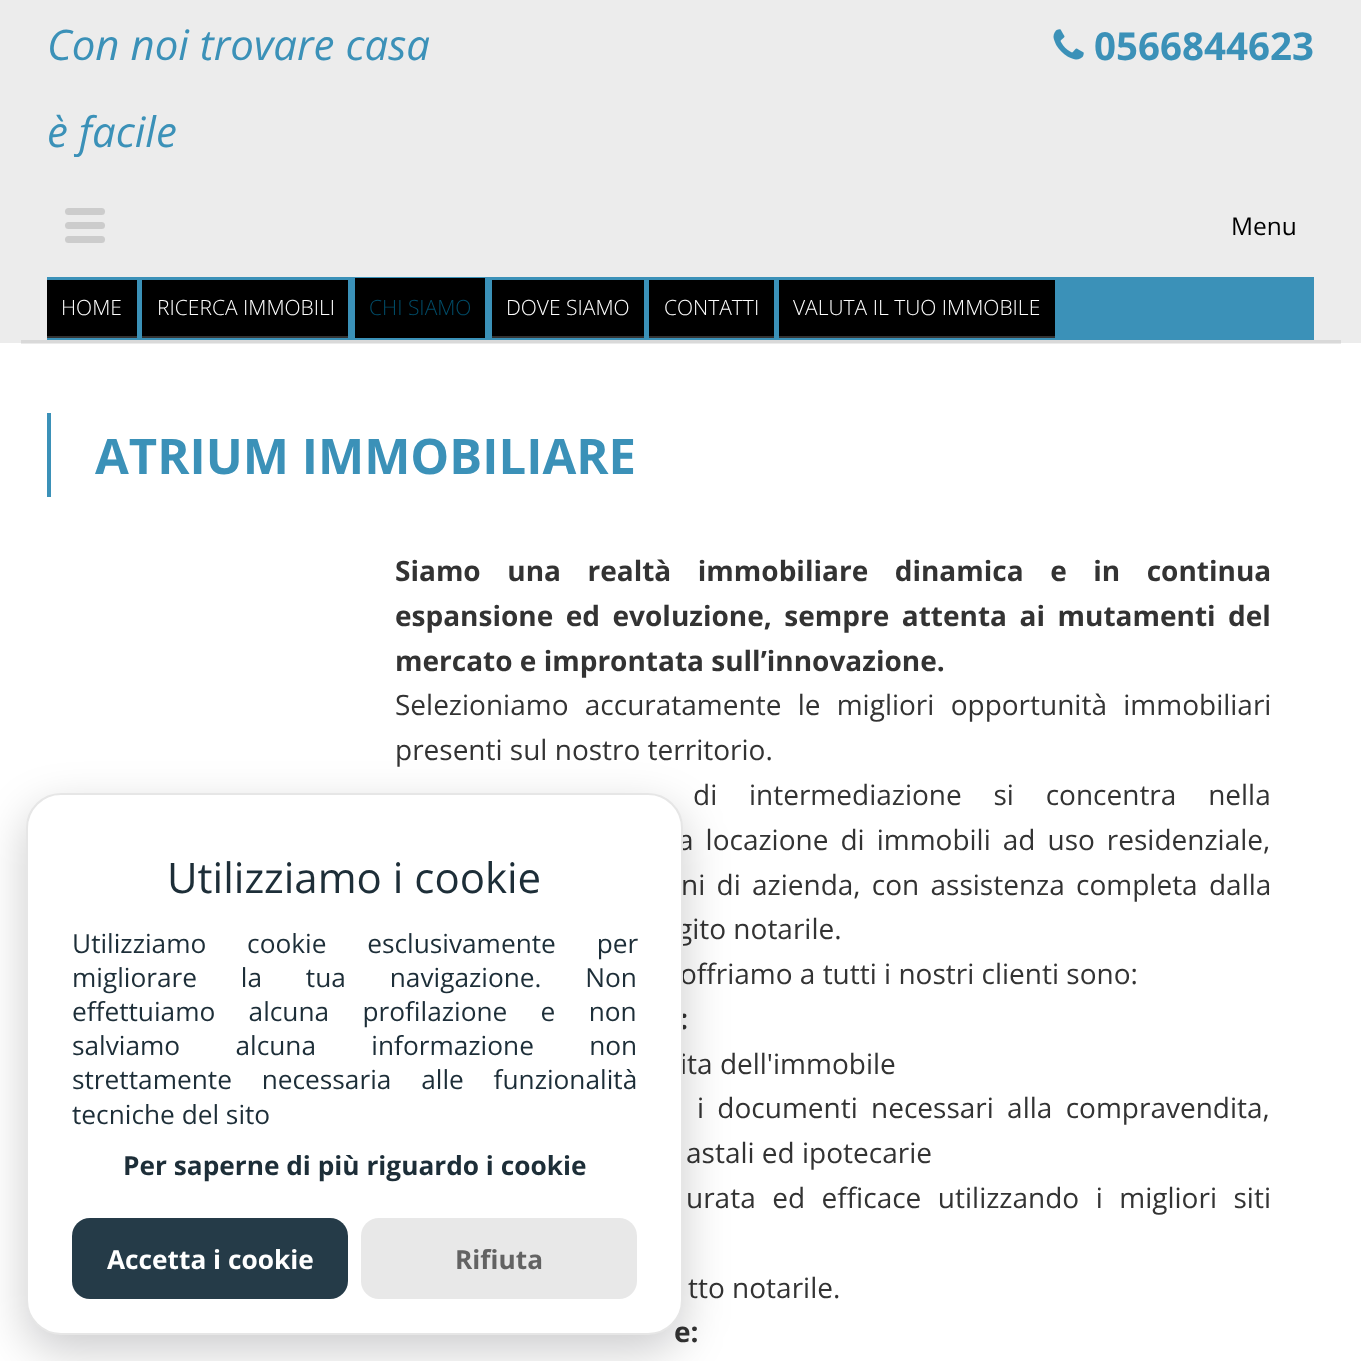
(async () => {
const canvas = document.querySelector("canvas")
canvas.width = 1361
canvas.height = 1361
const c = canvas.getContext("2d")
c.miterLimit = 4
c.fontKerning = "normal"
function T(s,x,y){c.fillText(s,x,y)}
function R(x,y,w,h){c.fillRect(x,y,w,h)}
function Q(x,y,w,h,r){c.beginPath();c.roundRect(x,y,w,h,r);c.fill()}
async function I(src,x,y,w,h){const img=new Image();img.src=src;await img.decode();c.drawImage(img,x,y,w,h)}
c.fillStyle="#fff"
R(0,0,1361,1361)
c.fillStyle="#ebebeb"
R(21,343,1320,1)
c.fillStyle="#ececec"
R(0,0,1361,343)
c.fillStyle="#d9d9d9"
R(21,340,1320,3)
c.font="italic 42px Open Sans"
c.fillStyle="#3b91b8"
T("Con noi trovare casa",47,60)
T("è facile",47,147)
await I("1.png",1053,29,31,31)
c.font="bold 38.5px Open Sans"
T("0566844623",1094,60)
c.fillStyle="#ccc"
Q(65,208,40,7,3.5)
Q(65,222,40,7,3.5)
c.font="24.5px Open Sans"
c.fillStyle="#000"
T("Menu",1231,235)
c.fillStyle="#ccc"
Q(65,236,40,7,3.5)
c.fillStyle="#3b91b8"
R(47,277,1267,63)
c.fillStyle="#000"
R(47,280,90,56)
c.fillStyle="#333"
R(47,336,90,2)
c.font="300 21px Open Sans"
c.fillStyle="#fff"
T("HOME",61,315)
c.fillStyle="#000"
R(142,280,206,56)
c.fillStyle="#333"
R(142,336,206,2)
c.fillStyle="#fff"
T("RICERCA IMMOBILI",157,315)
c.fillStyle="#000"
R(355,278,130,60)
c.fillStyle="#004b67"
T("CHI SIAMO",369,315)
c.fillStyle="#000"
R(492,280,152,56)
c.fillStyle="#333"
R(492,336,152,2)
c.fillStyle="#fff"
T("DOVE SIAMO",506,315)
c.fillStyle="#000"
R(649,280,125,56)
c.fillStyle="#333"
R(649,336,125,2)
c.fillStyle="#fff"
T("CONTATTI",664,315)
c.fillStyle="#000"
R(779,280,276,56)
c.fillStyle="#333"
R(779,336,276,2)
c.fillStyle="#fff"
T("VALUTA IL TUO IMMOBILE",793,315)
c.fillStyle="#3b91b8"
R(47,413,4,84)
c.font="bold 49px Open Sans"
T("ATRIUM IMMOBILIARE",95,474)
c.wordSpacing="19.25px"
c.font="bold 28px Open Sans"
c.fillStyle="#333"
T("Siamo una realtà immobiliare dinamica e in continua",395,581)
c.wordSpacing="5.25px"
T("espansione ed evoluzione, sempre attenta ai mutamenti del",395,626)
c.wordSpacing="0px"
T("mercato e improntata sull’innovazione.",395,671)
c.wordSpacing="9px"
c.font="28px Open Sans"
T("Selezioniamo accuratamente le migliori opportunità immobiliari",395,715)
c.wordSpacing="0px"
T("presenti sul nostro territorio.",395,760)
c.wordSpacing="24.5px"
T("di intermediazione si concentra nella",693,805)
c.wordSpacing="4.75px"
T("a locazione di immobili ad uso residenziale,",678,850)
c.wordSpacing="4px"
T("ni di azienda, con assistenza completa dalla",681,895)
c.wordSpacing="0px"
T("gito notarile.",677,939)
T("offriamo a tutti i nostri clienti sono:",680,984)
c.font="bold 28px Open Sans"
T(":",680,1029)
c.font="28px Open Sans"
T("ita dell'immobile",680,1074)
c.wordSpacing="6px"
T("i documenti necessari alla compravendita,",697,1118)
c.wordSpacing="0px"
T("astali ed ipotecarie",686,1163)
c.wordSpacing="9.25px"
T("urata ed efficace utilizzando i migliori siti",686,1208)
c.wordSpacing="0px"
T("tto notarile.",688,1298)
c.font="bold 28px Open Sans"
T("e:",674,1342)
c.fillStyle="#02020333"
c.filter="blur(23px)"
c.beginPath()
c.roundRect(26,809,657,542,35)
c.fill()
c.filter="none"
c.fillStyle="#fff"
c.beginPath()
c.roundRect(27,794,655,540,34)
c.fill()
c.strokeStyle="#e6e6e6"
c.lineWidth=2
c.stroke()
c.font="42px Open Sans"
c.fillStyle="#1d2e38"
T("Utilizziamo i cookie",167,893)
c.wordSpacing="34px"
c.font="26.25px Open Sans"
T("Utilizziamo cookie esclusivamente per",72,953)
c.wordSpacing="37px"
T("migliorare la tua navigazione. Non",72,987)
c.wordSpacing="26.5px"
T("effettuiamo alcuna profilazione e non",72,1021)
c.wordSpacing="48.5px"
T("salviamo alcuna informazione non",72,1055)
c.wordSpacing="23px"
T("strettamente necessaria alle funzionalità",72,1089)
c.wordSpacing="0px"
T("tecniche del sito",72,1124)
c.font="bold 26.25px Open Sans"
T("Per saperne di più riguardo i cookie",123,1175)
c.fillStyle="#253b48"
Q(72,1218,276,81,18)
c.fillStyle="#fff"
T("Accetta i cookie",107,1269)
c.fillStyle="#e8e8e8"
Q(361,1218,276,81,18)
c.fillStyle="#636363"
T("Rifiuta",455,1269)
})()
